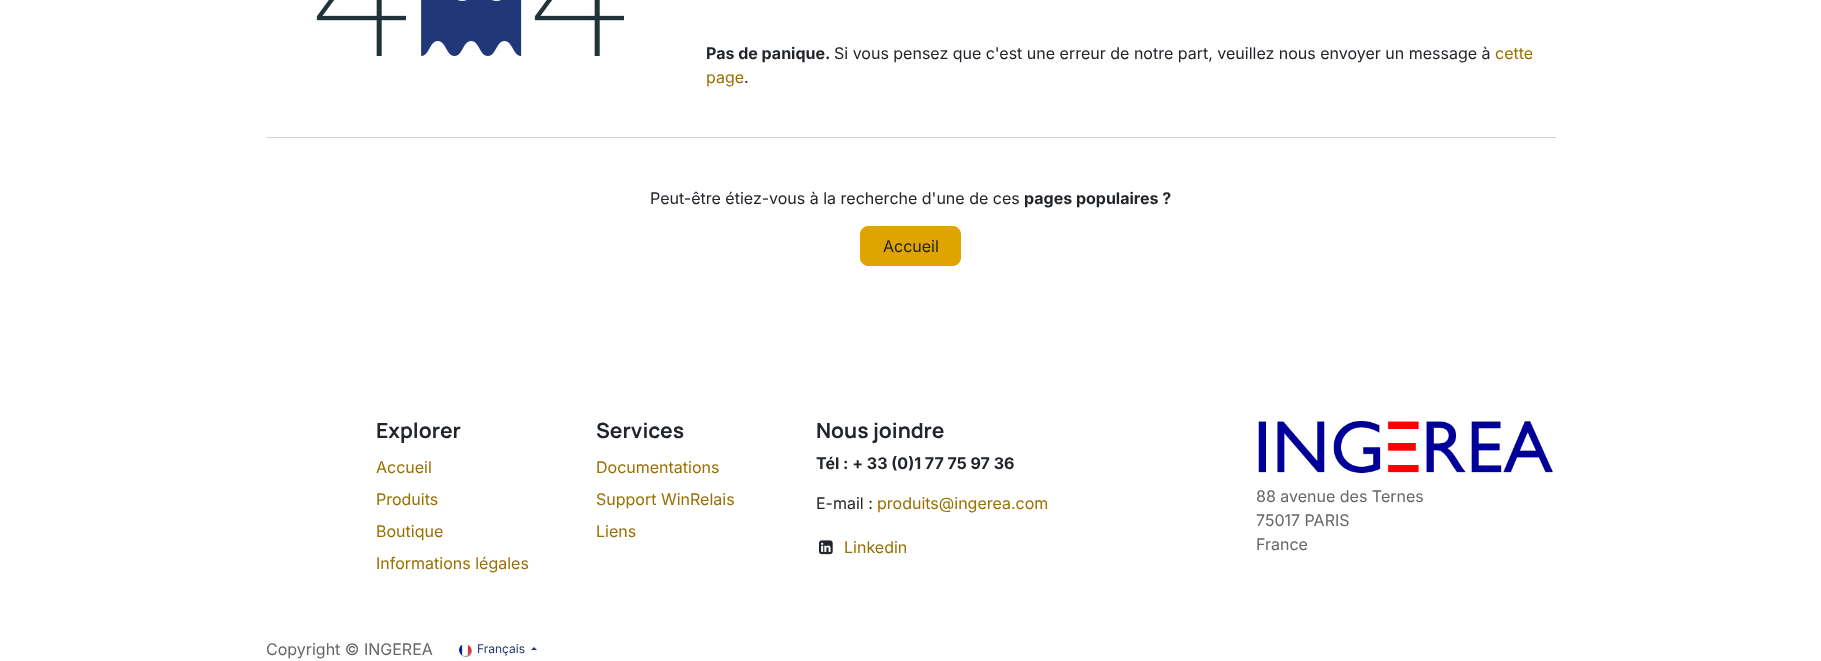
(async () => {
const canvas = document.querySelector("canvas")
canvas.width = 1821
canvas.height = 661
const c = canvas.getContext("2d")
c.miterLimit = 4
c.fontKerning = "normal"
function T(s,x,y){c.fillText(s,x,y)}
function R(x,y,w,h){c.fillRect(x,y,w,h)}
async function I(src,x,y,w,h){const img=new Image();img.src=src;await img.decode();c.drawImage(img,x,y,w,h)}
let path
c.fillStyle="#fff"
R(0,0,1821,661)
await I("1.png",316,0,308,56)
c.font="bold 16px Inter"
c.fillStyle="#212529"
T("Pas de panique.",706,59)
c.font="16px Inter"
T("Si vous pensez que c'est une erreur de notre part, veuillez nous envoyer un message à",834,59)
c.fillStyle="#986f00"
T("cette",1495,59)
T("page",706,83)
c.fillStyle="#212529"
T(".",744,83)
c.fillStyle="#ced4da"
R(266,137,1290,1)
c.fillStyle="#212529"
T("Peut-être étiez-vous à la recherche d'une de ces",650,204)
c.font="bold 16px Inter"
T("pages populaires ?",1024,204)
c.fillStyle="#dfa400"
c.beginPath()
c.roundRect(860.5,226.5,100,39,7.5)
c.fill()
c.strokeStyle="#dfa400"
c.stroke()
c.font="16px Inter"
c.fillStyle="#212529"
T("Accueil",883,252)
c.font="bold 21px Manrope"
T("Explorer",376,438)
c.font="16px Inter"
c.fillStyle="#986f00"
T("Accueil",376,473)
T("Produits",376,505)
T("Boutique",376,537)
T("Informations légales",376,569)
c.font="bold 21px Manrope"
c.fillStyle="#212529"
T("Services",596,438)
c.font="16px Inter"
c.fillStyle="#986f00"
T("Documentations",596,473)
T("Support WinRelais",596,505)
T("Liens",596,537)
c.font="bold 21px Manrope"
c.fillStyle="#212529"
T("Nous joindre",816,438)
c.font="bold 16px Inter"
T("Tél : + 33 (0)1 77 75 97 36",816,469)
c.font="16px Inter"
T("E-mail :",816,509)
c.fillStyle="#986f00"
T("produits@ingerea.com",877,509)
await I("2.png",819,540,14,15)
T("Linkedin",844,553)
await I("3.png",1258,421,295,52)
c.fillStyle="#646669"
T("88 avenue des Ternes",1256,502)
T("75017 PARIS",1256,526)
T("France",1256,550)
T("Copyright © INGEREA",266,655)
c.fillStyle="#0000006e"
c.filter="blur(0.5px)"
c.beginPath()
c.roundRect(460,645,12,12,6)
c.fill()
c.filter="none"
await I("4.png",459,644,12,12)
c.font="12px Inter"
c.fillStyle="#203878"
T("Français",477,653)
path = new Path2D("M537 650h-6l3-3z")
c.fill(path)
})()
